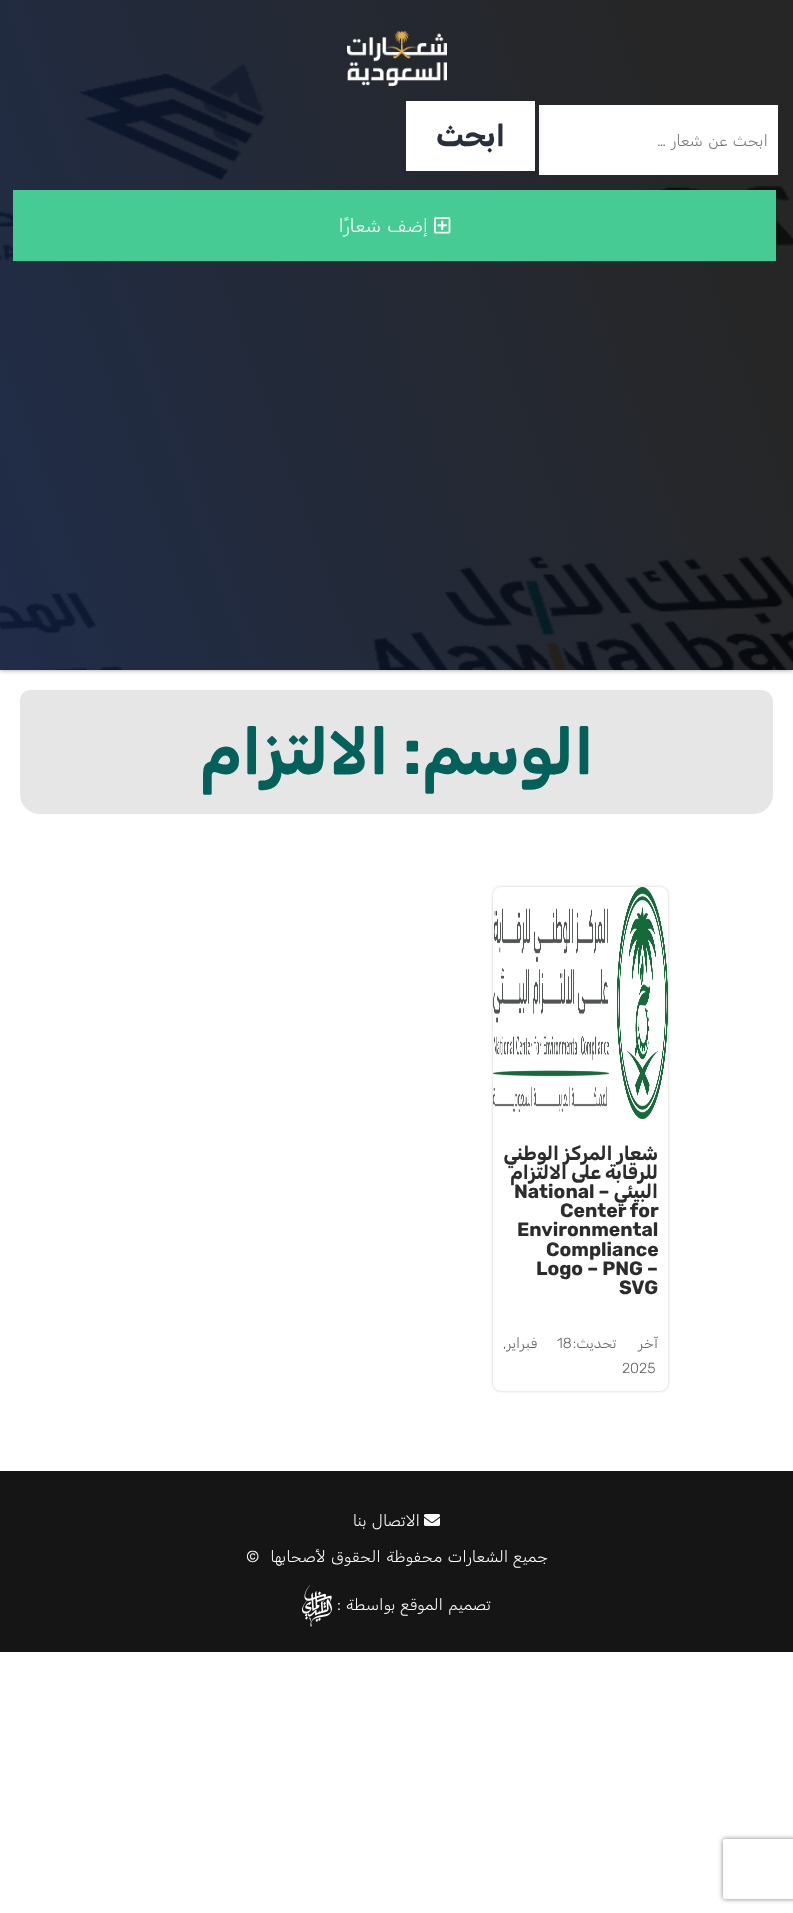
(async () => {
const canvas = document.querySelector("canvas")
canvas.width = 793
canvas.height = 1913
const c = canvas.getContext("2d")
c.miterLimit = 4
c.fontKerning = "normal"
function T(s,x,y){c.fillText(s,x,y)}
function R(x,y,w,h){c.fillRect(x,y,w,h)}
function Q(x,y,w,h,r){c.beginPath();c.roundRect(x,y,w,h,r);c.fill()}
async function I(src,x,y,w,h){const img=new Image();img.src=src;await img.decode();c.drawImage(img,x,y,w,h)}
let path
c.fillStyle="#fff"
R(0,0,793,1913)
c.fillStyle="#949494"
c.filter="blur(2.5px)"
c.beginPath()
c.rect(0,0,793,670)
c.fill()
c.filter="none"
await I("1.png",0,0,793,670)
await I("2.png",347,30,100,56)
c.fillStyle="#fff"
R(539,105,239,70)
c.wordSpacing="1px"
c.direction="rtl"
c.font="300 16px Rubik"
c.fillStyle="#757575"
T("ابحث عن شعار …",768,146)
c.fillStyle="#28303d"
c.filter="blur(5px)"
c.beginPath()
c.rect(413,108,119,60)
c.fill()
c.filter="none"
c.fillStyle="#fff"
R(406,101,129,70)
c.wordSpacing="0px"
c.font="bold 30px Rubik"
c.fillStyle="#28303d"
T("ابحث",505,146)
c.fillStyle="#47cb94"
R(13,190,763,71)
await I("3.png",434,217,17,17)
c.wordSpacing="1px"
c.font="300 18.75px Rubik"
c.fillStyle="#fff"
T("إضف شعارًا",428,232)
c.fillStyle="#e6e6e6"
c.beginPath()
c.roundRect(20,690,753,124,[10,12,20,20])
c.fill()
c.wordSpacing="0px"
c.font="bold 64px Rubik"
c.fillStyle="#03605b"
T("الوسم:",594,774)
T("الالتزام",389,774)
c.fillStyle="#ccc"
c.filter="blur(1.5px)"
c.beginPath()
c.roundRect(493,887,175,504,8)
c.fill()
c.filter="none"
c.fillStyle="#fff"
Q(493,887,175,504,8)
await I("4.png",493,887,175,232)
c.font="bold 19.25px Rubik"
c.fillStyle="#2c2c2c"
T("شعار المركز الوطني",658,1160)
T("للرقابة على الالتزام",658,1179)
T("البيئي –",658,1198)
c.direction="ltr"
T("National",514,1198)
T("Center for",560,1217)
T("Environmental",517,1236)
T("Compliance",546,1256)
T("Logo – PNG –",536,1275)
T("SVG",619,1294)
c.wordSpacing="18px"
c.direction="rtl"
c.font="300 14.5px Rubik"
c.fillStyle="#626262"
T("آخر تحديث:",658,1348)
c.wordSpacing="0px"
c.direction="ltr"
T("18",557,1348)
c.direction="rtl"
T("فبراير,",537,1348)
c.direction="ltr"
T("2025",622,1373)
c.fillStyle="#151515"
R(0,1471,793,181)
await I("5.png",424,1514,16,12)
c.wordSpacing="1px"
c.direction="rtl"
c.font="300 16px Rubik"
c.fillStyle="#fff"
T("الاتصال بنا",420,1526)
c.wordSpacing="1.25px"
T("جميع الشعارات محفوظة الحقوق لأصحابها  ©",548,1562)
c.wordSpacing="1px"
T("تصميم الموقع بواسطة :",491,1610)
await I("6.png",302,1585,30,42)
c.save()
path = new Path2D("M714 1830h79v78h-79zm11 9h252c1 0 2 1 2 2v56c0 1-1 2-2 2h-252c-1 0-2-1-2-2v-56c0-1 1-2 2-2z")
c.clip(path,"evenodd")
c.fillStyle="#808080"
c.filter="blur(2.5px)"
c.beginPath()
c.roundRect(723,1839,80,60,2)
c.fill()
c.filter="none"
c.restore()
})()
